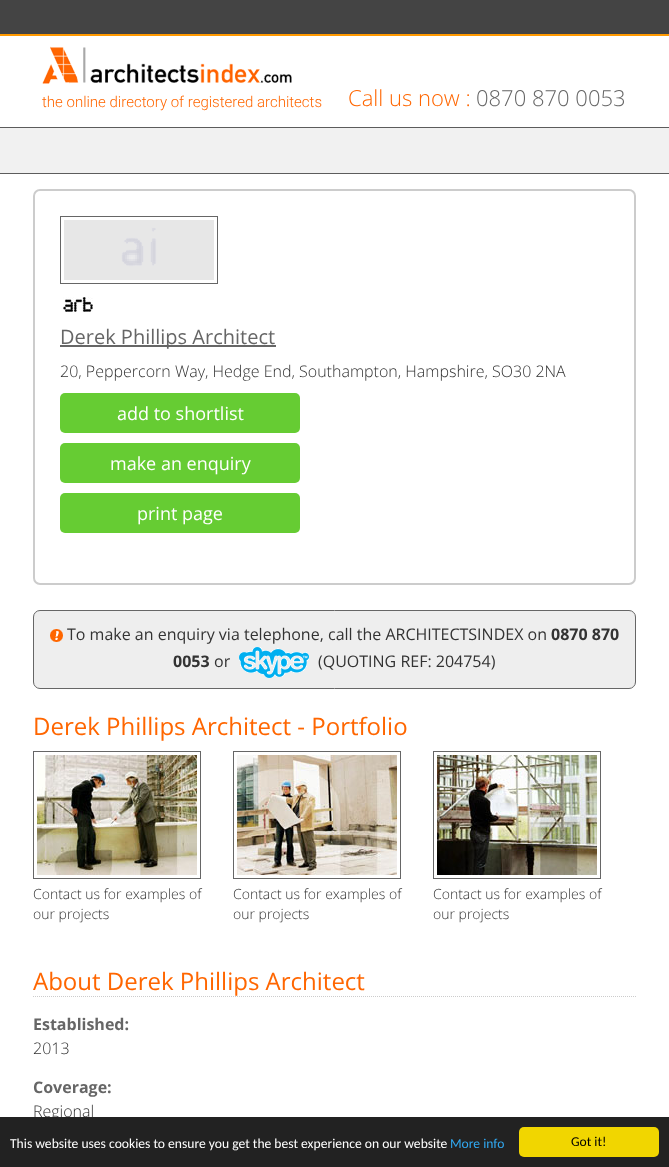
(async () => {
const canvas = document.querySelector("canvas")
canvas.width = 669
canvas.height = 1167
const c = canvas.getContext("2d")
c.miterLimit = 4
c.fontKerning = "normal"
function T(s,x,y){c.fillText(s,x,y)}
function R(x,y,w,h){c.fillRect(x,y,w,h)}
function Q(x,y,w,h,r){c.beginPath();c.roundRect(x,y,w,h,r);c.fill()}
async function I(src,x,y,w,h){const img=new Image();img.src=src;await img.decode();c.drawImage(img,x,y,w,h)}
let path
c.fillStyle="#fff"
R(0,0,669,1167)
c.fillStyle="#444"
R(0,0,669,34)
c.fillStyle="#f90"
R(0,34,669,2)
await I("1.png",42,46,250,38)
c.font="300 15px Roboto"
c.fillStyle="#f60"
T("the online directory of registered architects",42,107)
c.font="300 22px Open Sans"
T("Call us now :",348,106)
c.fillStyle="#666"
T("0870 870 0053",476,106)
c.fillStyle="#f1f1f1"
R(0,128,669,45)
c.fillStyle="#5c5c5c"
R(0,127,669,1)
R(0,173,669,1)
c.beginPath()
c.roundRect(34,190,601,394,6)
c.strokeStyle="#ccc"
c.lineWidth=2
c.stroke()
c.strokeStyle="#666"
c.lineWidth=1
c.strokeRect(60.5,216.5,157,67)
await I("2.png",64,220,150,60)
await I("3.png",63,297,30,15)
c.fillStyle="#666"
R(60,345,216,2)
c.font="20px Open Sans"
T("Derek Phillips Architect",60,344)
c.font="300 16px Open Sans"
c.fillStyle="#333"
T("20, Peppercorn Way, Hedge End, Southampton, Hampshire, SO30 2NA",60,377)
c.fillStyle="#6c3"
Q(60,393,240,40,5)
c.font="18px Open Sans"
c.fillStyle="#fff"
T("add to shortlist",117,420)
c.fillStyle="#6c3"
Q(60,443,240,40,5)
c.fillStyle="#fff"
T("make an enquiry",110,470)
c.fillStyle="#6c3"
Q(60,493,240,40,5)
c.fillStyle="#fff"
T("print page",137,520)
c.fillStyle="#eee"
c.beginPath()
c.roundRect(33.5,610.5,602,78,6.5)
c.fill()
c.stroke()
await I("4.png",50,629,13,13)
c.font="16px Open Sans"
c.fillStyle="#333"
T("To make an enquiry via telephone, call the ARCHITECTSINDEX on",67,640)
c.font="bold 16px Open Sans"
T("0870 870",551,640)
T("0053",173,667)
c.font="16px Open Sans"
T("or",214,667)
await I("5.png",239,647,70,31)
T("(QUOTING REF: 204754)",318,667)
c.font="24px Open Sans"
c.fillStyle="#f60"
T("Derek Phillips Architect - Portfolio",33,735)
c.strokeRect(33.5,751.5,167,127)
await I("6.png",37,755,160,120)
c.font="300 14px Open Sans"
c.fillStyle="#333"
T("Contact us for examples of",33,899)
T("our projects",33,919)
c.strokeRect(233.5,751.5,167,127)
await I("7.png",237,755,160,120)
T("Contact us for examples of",233,899)
T("our projects",233,919)
c.strokeRect(433.5,751.5,167,127)
await I("8.png",437,755,160,120)
T("Contact us for examples of",433,899)
T("our projects",433,919)
path = new Path2D("M33 996.5h603")
c.strokeStyle="#ccc"
c.setLineDash([1,1])
c.stroke(path)
c.font="24px Open Sans"
c.fillStyle="#f60"
T("About Derek Phillips Architect",33,990)
c.font="bold 16px Open Sans"
c.fillStyle="#666"
T("Established:",33,1030)
c.font="300 16px Open Sans"
c.fillStyle="#333"
T("2013",33,1054)
c.font="bold 16px Open Sans"
c.fillStyle="#666"
T("Coverage:",33,1093)
c.font="300 16px Open Sans"
c.fillStyle="#333"
T("Regional",33,1117)
c.fillStyle="#222"
R(0,1117,669,50)
c.font="13.6px Carlito"
c.fillStyle="#fff"
T("This website uses cookies to ensure you get the best experience on our website",10,1148)
c.fillStyle="#31a8f0"
T("More info",450,1148)
c.fillStyle="#f1d600"
Q(519,1127,140,30,5)
c.fillStyle="#000"
T("Got it!",571,1146)
})()
